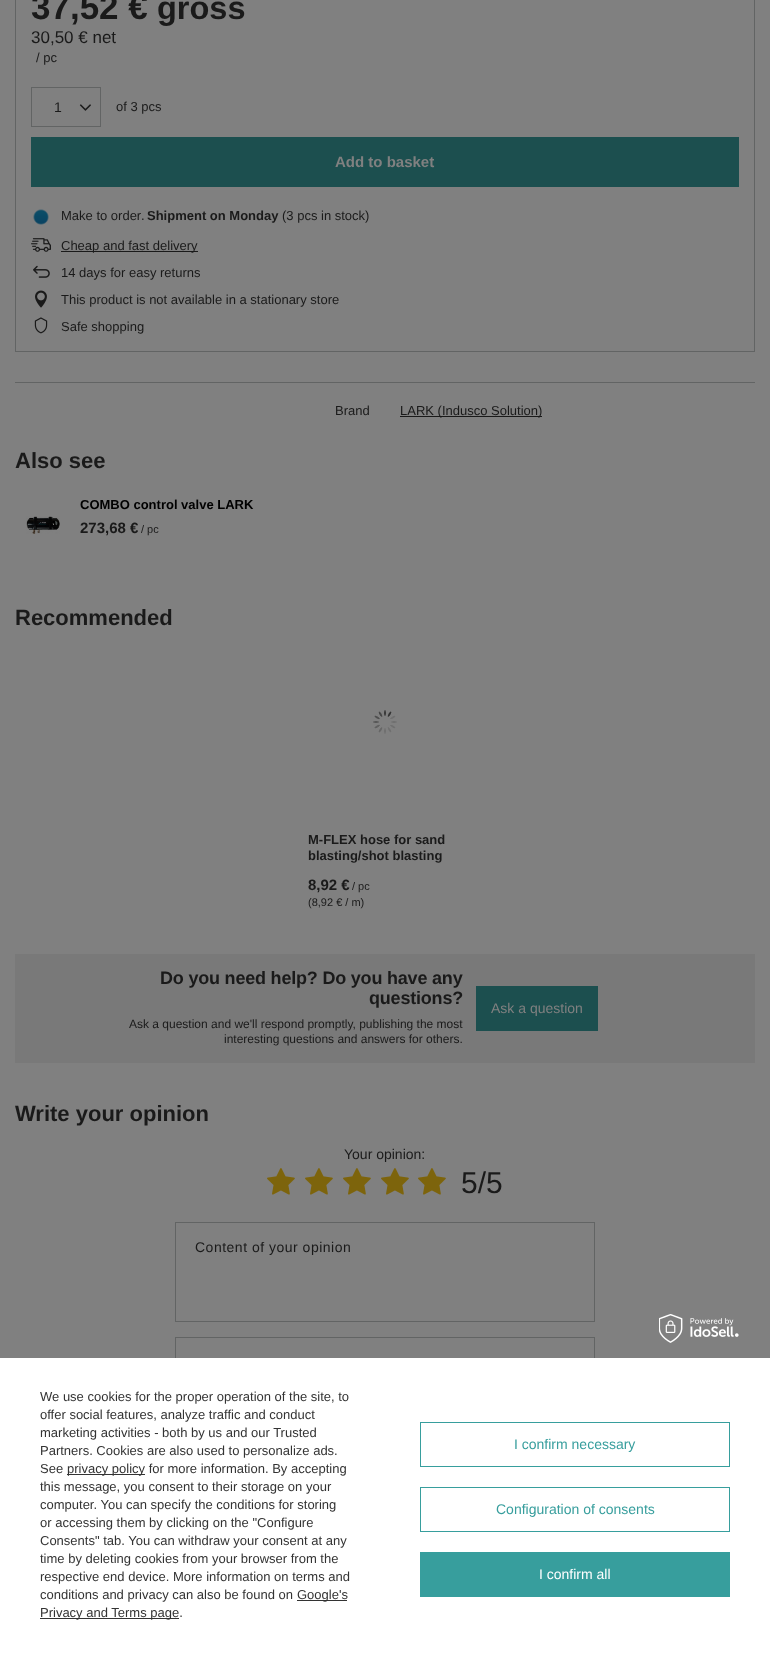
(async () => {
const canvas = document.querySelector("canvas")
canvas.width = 770
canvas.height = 1660
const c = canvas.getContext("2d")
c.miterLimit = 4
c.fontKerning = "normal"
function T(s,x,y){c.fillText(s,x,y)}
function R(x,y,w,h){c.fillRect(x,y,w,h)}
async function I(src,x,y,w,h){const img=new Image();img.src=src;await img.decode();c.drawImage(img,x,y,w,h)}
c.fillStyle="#808080"
R(0,0,770,1660)
c.strokeStyle="#626464"
c.strokeRect(15.5,-.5,739,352)
c.font="bold 35px Liberation Sans"
c.fillStyle="#1a1a1a"
T("37,52 €",31,19)
c.font="bold 32.5px Liberation Sans"
T("gross",157,19)
c.font="17px Liberation Sans"
T("30,50 € net",31,43)
c.font="13px Liberation Sans"
T("/ pc",36,62)
c.strokeRect(31.5,87.5,69,39)
await I("1.png",79,104,12,7)
c.font="14px Liberation Sans"
T("1",54,112)
c.font="13px Liberation Sans"
T("of 3 pcs",116,111)
c.fillStyle="#1c4f4f"
R(31,137,708,50)
c.font="bold 15px Liberation Sans"
c.fillStyle="#808080"
T("Add to basket",335,167)
await I("2.png",33,209,16,16)
c.font="13px Liberation Sans"
c.fillStyle="#1a1a1a"
T("Make to order",61,220)
T(".",141,220)
c.font="bold 13px Liberation Sans"
T("Shipment on Monday",147,220)
c.font="13px Liberation Sans"
T("(3 pcs in stock)",282,220)
await I("3.png",31,238,20,14)
R(61,251,137,1)
T("Cheap and fast delivery",61,250)
await I("4.png",33,265,17,13)
T("14 days for easy returns",61,277)
await I("5.png",35,290,12,18)
T("This product is not available in a stationary store",61,304)
await I("6.png",34,317,14,17)
T("Safe shopping",61,331)
c.fillStyle="#626464"
R(15,382,740,1)
c.fillStyle="#1a1a1a"
T("Brand",335,415)
R(400,416,142,1)
T("LARK (Indusco Solution)",400,415)
c.font="bold 22px Liberation Sans"
T("Also see",15,468)
await I("7.png",26,516,34,18)
c.font="bold 13px Liberation Sans"
c.fillStyle="#000"
T("COMBO control valve LARK",80,509)
c.font="bold 15px Liberation Sans"
c.fillStyle="#1a1a1a"
T("273,68 €",80,533)
c.font="11px Liberation Sans"
T("/ pc",141,533)
c.font="bold 22px Liberation Sans"
T("Recommended",15,625)
await I("8.png",373,710,24,24)
c.font="bold 13px Liberation Sans"
T("M-FLEX hose for sand",308,844)
T("blasting/shot blasting",308,860)
c.font="bold 15px Liberation Sans"
T("8,92 €",308,890)
c.font="11px Liberation Sans"
T("/ pc",352,890)
T("(8,92 € / m)",308,906)
c.fillStyle="#797979"
R(15,954,740,109)
c.letterSpacing="-0.2px"
c.font="bold 18px Liberation Sans"
c.fillStyle="#1a1a1a"
T("Do you need help? Do you have any",160,984)
T("questions?",369,1004)
c.fillStyle="#1c4f4f"
R(476,986,122,45)
c.letterSpacing="0px"
c.font="14px Liberation Sans"
c.fillStyle="#808080"
T("Ask a question",491,1013)
c.font="12px Liberation Sans"
c.fillStyle="#1a1a1a"
T("Ask a question and we'll respond promptly, publishing the most",129,1028)
T("interesting questions and answers for others.",224,1043)
c.font="bold 22px Liberation Sans"
T("Write your opinion",15,1121)
c.font="14px Liberation Sans"
T("Your opinion:",344,1159)
await I("9.png",267,1168,28,27)
await I("9.png",305,1168,28,27)
await I("9.png",343,1168,28,27)
await I("9.png",381,1168,28,27)
await I("9.png",418,1168,28,27)
c.font="30px Liberation Sans"
T("5/5",461,1193)
c.strokeRect(175.5,1222.5,419,99)
c.letterSpacing="0.5px"
c.font="14px Liberation Sans"
T("Content of your opinion",195,1252)
c.strokeRect(175.5,1337.5,419,86)
c.fillStyle="#fff"
R(0,1358,770,302)
await I("10.png",659,1314,80,29)
c.letterSpacing="0px"
c.font="13px Liberation Sans"
c.fillStyle="#333"
T("We use cookies for the proper operation of the site, to",40,1401)
T("offer social features, analyze traffic and conduct",40,1419)
T("marketing activities - both by us and our Trusted",40,1437)
T("Partners. Cookies are also used to personalize ads.",40,1455)
T("See",40,1473)
R(67,1474,78,1)
T("privacy policy for more information. By accepting",67,1473)
T("this message, you consent to their storage on your",40,1491)
T("computer. You can specify the conditions for storing",40,1509)
T("or accessing them by clicking on the \"Configure",40,1527)
T("Consents\" tab. You can withdraw your consent at any",40,1545)
T("time by deleting cookies from your browser from the",40,1563)
T("respective end device. More information on terms and",40,1581)
T("conditions and privacy can also be found on",40,1599)
R(297,1600,50,1)
T("Google's",297,1599)
R(40,1618,139,1)
T("Privacy and Terms page.",40,1617)
c.strokeStyle="#379e9d"
c.strokeRect(420.5,1422.5,309,44)
c.font="14px Liberation Sans"
c.fillStyle="#379e9d"
T("I confirm necessary",514,1449)
c.strokeRect(420.5,1487.5,309,44)
T("Configuration of consents",496,1514)
R(420,1552,310,45)
c.fillStyle="#fff"
T("I confirm all",539,1579)
})()
